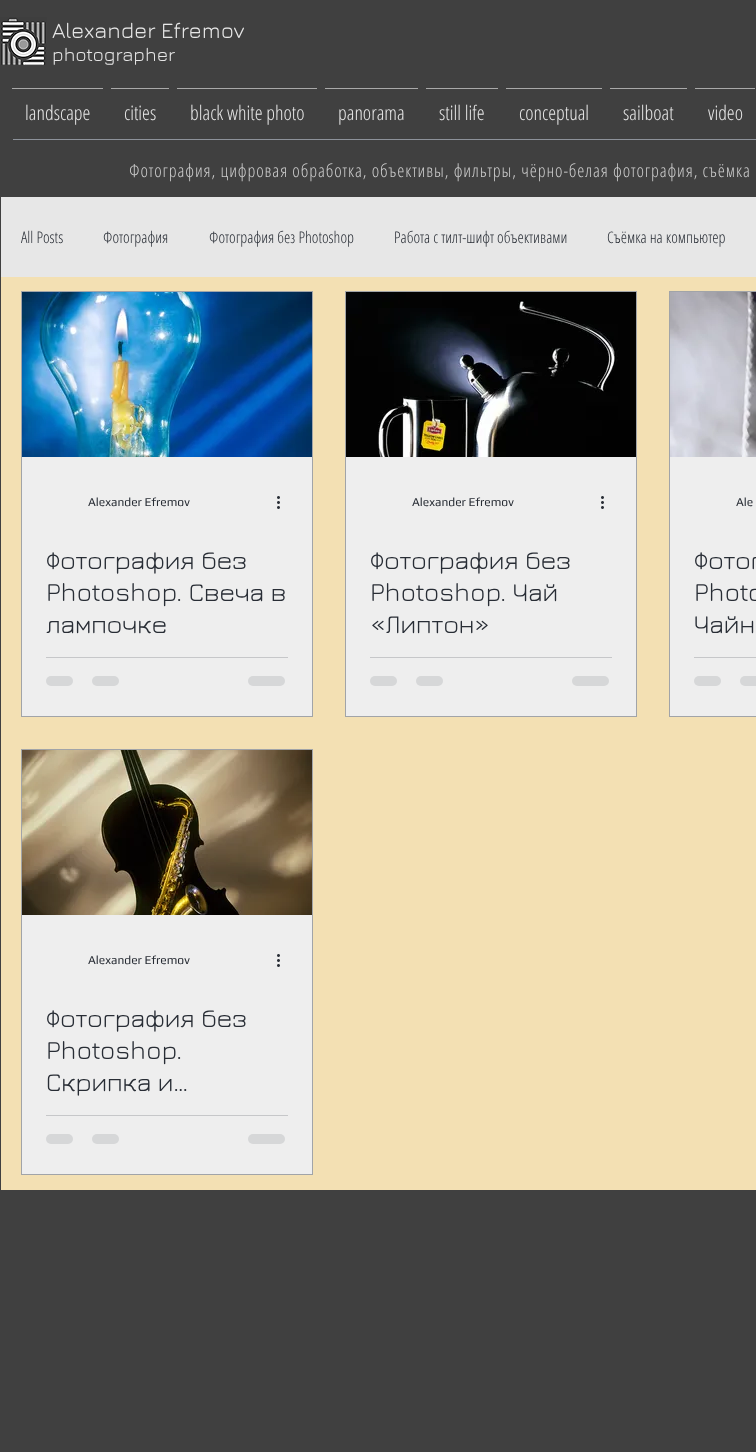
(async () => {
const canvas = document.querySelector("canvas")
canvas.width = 756
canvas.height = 1452
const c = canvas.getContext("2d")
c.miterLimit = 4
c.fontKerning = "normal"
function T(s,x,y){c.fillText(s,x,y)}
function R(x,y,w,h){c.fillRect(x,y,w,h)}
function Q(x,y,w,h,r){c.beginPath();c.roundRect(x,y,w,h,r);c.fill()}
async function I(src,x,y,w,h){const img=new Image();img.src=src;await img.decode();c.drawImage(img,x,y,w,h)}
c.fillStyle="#404040"
R(0,0,756,1452)
await I("1.png",0,17,47,48)
c.font="22px Jura"
c.fillStyle="#e7e7e7"
T("Alexander Efremov",52,38)
c.font="19px Jura"
T("photographer",52,61)
c.fillStyle="#a9a9a9"
R(12,88,91,1)
c.font="300 20px Open Sans Condensed"
c.fillStyle="#e7e7e7"
T("landscape",25,120)
c.fillStyle="#a9a9a9"
R(111,88,58,1)
c.fillStyle="#e7e7e7"
T("cities",124,120)
c.fillStyle="#a9a9a9"
R(177,88,140,1)
c.fillStyle="#e7e7e7"
T("black white photo",190,120)
c.fillStyle="#a9a9a9"
R(325,88,93,1)
c.fillStyle="#e7e7e7"
T("panorama",338,120)
c.fillStyle="#a9a9a9"
R(426,88,72,1)
c.fillStyle="#e7e7e7"
T("still life",439,120)
c.fillStyle="#a9a9a9"
R(506,88,96,1)
c.fillStyle="#e7e7e7"
T("conceptual",519,120)
c.fillStyle="#a9a9a9"
R(610,88,77,1)
c.fillStyle="#e7e7e7"
T("sailboat",623,120)
c.fillStyle="#a9a9a9"
R(695,88,60,1)
c.fillStyle="#e7e7e7"
T("video",708,120)
c.fillStyle="#8d929a"
R(13,139,743,1)
c.letterSpacing="0.9px"
c.font="300 18px Open Sans Condensed"
c.fillStyle="#ccc"
T("Фотография, цифровая обработка, объективы, фильтры, чёрно-белая фотография, съёмка",129,177)
c.fillStyle="#f3e0b3"
R(1,277,755,913)
c.fillStyle="#e7e7e7"
R(1,197,755,80)
c.letterSpacing="0px"
c.font="300 16px Open Sans Condensed"
c.fillStyle="#282d35"
T("All Posts",21,243)
T("Фотография",103,243)
T("Фотография без Photoshop",209,243)
T("Работа с тилт-шифт объективами",394,243)
T("Съёмка на компьютер",607,243)
c.fillStyle="#eee"
R(22,457,290,259)
c.strokeStyle="#a1a4a8"
c.strokeRect(21.5,291.5,291,425)
await I("2.png",22,292,290,165)
c.font="12px Play"
c.fillStyle="#282d35"
T("Alexander Efremov",88,506)
await I("3.png",277,496,3,13)
c.font="26px Jura"
T("Фотография без",46,569)
T("Photoshop. Свеча в",46,601)
T("лампочке",46,633)
c.fillStyle="#c6c7c9"
R(46,657,242,1)
c.fillStyle="#d6d7d8"
Q(46,676,27,10,5)
Q(92,676,27,10,5)
Q(248,676,37,10,5)
c.fillStyle="#eee"
R(346,457,290,259)
c.strokeRect(345.5,291.5,291,425)
await I("4.png",346,292,290,165)
c.font="12px Play"
c.fillStyle="#282d35"
T("Alexander Efremov",412,506)
await I("3.png",601,496,3,13)
c.font="26px Jura"
T("Фотография без",370,569)
T("Photoshop. Чай",370,601)
T("«Липтон»",370,633)
c.fillStyle="#c6c7c9"
R(370,657,242,1)
c.fillStyle="#d6d7d8"
Q(370,676,27,10,5)
Q(416,676,27,10,5)
Q(572,676,37,10,5)
c.fillStyle="#eee"
R(670,457,86,259)
c.strokeRect(669.5,291.5,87,425)
await I("5.png",670,292,86,165)
c.font="12px Play"
c.fillStyle="#282d35"
T("Ale",736,506)
c.font="26px Jura"
T("Фотог",694,569)
T("Photo",694,601)
T("Чайн",694,633)
c.fillStyle="#c6c7c9"
R(694,657,62,1)
c.fillStyle="#d6d7d8"
Q(694,676,27,10,5)
Q(740,676,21,10,5)
c.fillStyle="#eee"
R(22,915,290,259)
c.strokeRect(21.5,749.5,291,425)
await I("6.png",22,750,290,165)
c.font="12px Play"
c.fillStyle="#282d35"
T("Alexander Efremov",88,964)
await I("3.png",277,954,3,13)
c.font="26px Jura"
T("Фотография без",46,1027)
T("Photoshop.",46,1059)
T("Скрипка и…",46,1091)
c.fillStyle="#c6c7c9"
R(46,1115,242,1)
c.fillStyle="#d6d7d8"
Q(46,1134,27,10,5)
Q(92,1134,27,10,5)
Q(248,1134,37,10,5)
})()
